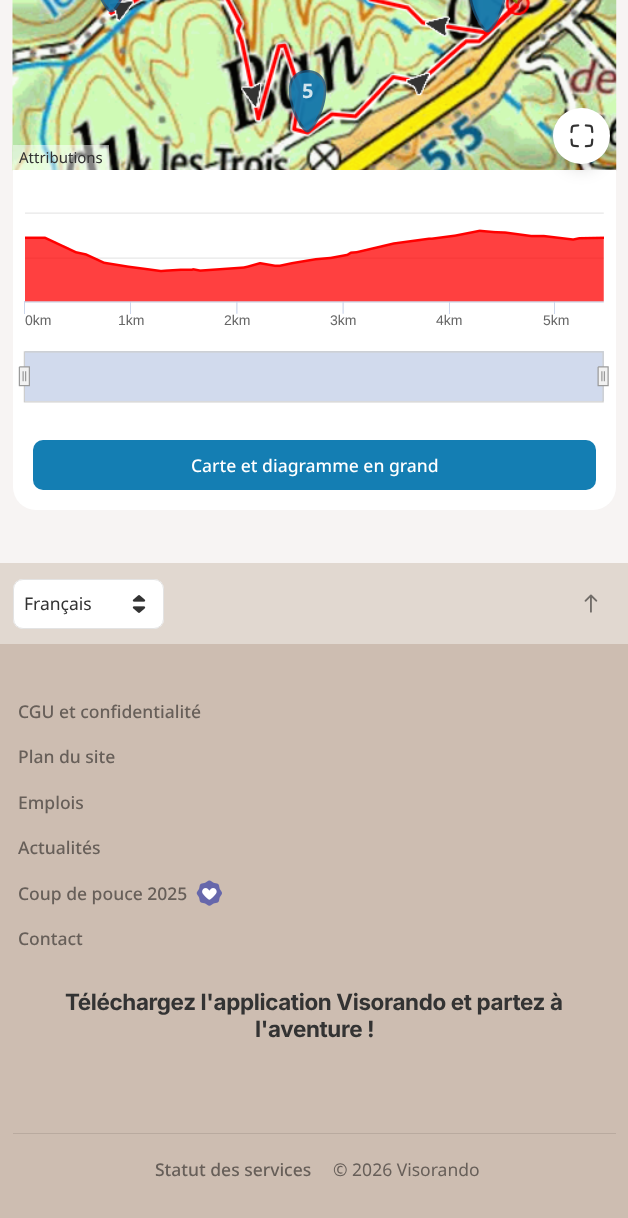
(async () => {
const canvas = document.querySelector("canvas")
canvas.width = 628
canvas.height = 1218
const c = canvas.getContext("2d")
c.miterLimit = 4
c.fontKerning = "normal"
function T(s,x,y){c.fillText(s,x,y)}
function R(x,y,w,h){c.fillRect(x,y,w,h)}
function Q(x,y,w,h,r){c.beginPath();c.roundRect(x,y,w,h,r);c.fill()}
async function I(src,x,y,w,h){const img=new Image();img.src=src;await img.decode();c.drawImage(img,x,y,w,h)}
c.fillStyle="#f7f4f3"
R(0,0,628,1218)
c.fillStyle="#fff"
Q(13,-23,603,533,23)
await I("1.png",12,0,605,171)
await I("2.png",100,0,22,13)
await I("3.png",469,0,37,33)
await I("4.png",512,0,11,4)
await I("5.png",289,70,37,63)
c.font="bold 20px Noto Sans"
c.fillStyle="#d0e3ed"
T("5",302,98)
c.fillStyle="#ffffff80"
R(13,145,96,25)
c.font="15px Noto Sans"
c.fillStyle="#333"
T("Attributions",19,163)
await I("7.png",13,170,603,233)
c.fillStyle="#0000001a"
c.filter="blur(7.5px)"
c.beginPath()
c.roundRect(558,125,47,46,23)
c.fill()
c.filter="none"
c.filter="blur(4px)"
c.beginPath()
c.roundRect(555,113,53,51,25.5)
c.fill()
c.filter="none"
c.fillStyle="#fff"
Q(553,108,57,56,28)
await I("6.png",570,124,24,24)
c.font="14px Liberation Sans"
c.fillStyle="#666"
T("0km",25,325)
T("1km",118,325)
T("2km",224,325)
T("3km",330,325)
T("4km",436,325)
T("5km",543,325)
c.fillStyle="#147eb3"
Q(33,440,563,50,10)
c.font="500 17.5px Noto Sans"
c.fillStyle="#fff"
T("Carte et diagramme en grand",191,472)
c.fillStyle="#e1d8d0"
R(0,563,628,81)
c.fillStyle="#fff"
Q(13,579,151,50,10)
await I("8.png",132,595,14,18)
c.beginPath()
c.roundRect(13.5,579.5,150,49,9.5)
c.strokeStyle="#e3e3e3"
c.stroke()
c.font="17.5px Noto Sans"
c.fillStyle="#333"
T("Français",24,610)
await I("9.png",584,594,14,19)
c.fillStyle="#cdbdb1"
R(0,644,628,574)
c.font="500 17.5px Noto Sans"
c.fillStyle="#675f59"
T("CGU et confidentialité",18,718)
T("Plan du site",18,763)
T("Emplois",18,809)
T("Actualités",18,854)
T("Coup de pouce 2025",18,900)
await I("10.png",196,880,26,26)
T("Contact",18,945)
c.letterSpacing="-0.35px"
c.font="bold 22.4px Inter"
c.fillStyle="#333"
T("Téléchargez l'application Visorando et partez à",65,1010)
T("l'aventure !",255,1037)
c.fillStyle="#b9aa9f"
R(13,1133,603,1)
c.letterSpacing="0px"
c.font="500 17.5px Noto Sans"
c.fillStyle="#675f59"
T("Statut des services",155,1176)
c.font="17.5px Noto Sans"
T("© 2026 Visorando",333,1176)
})()
